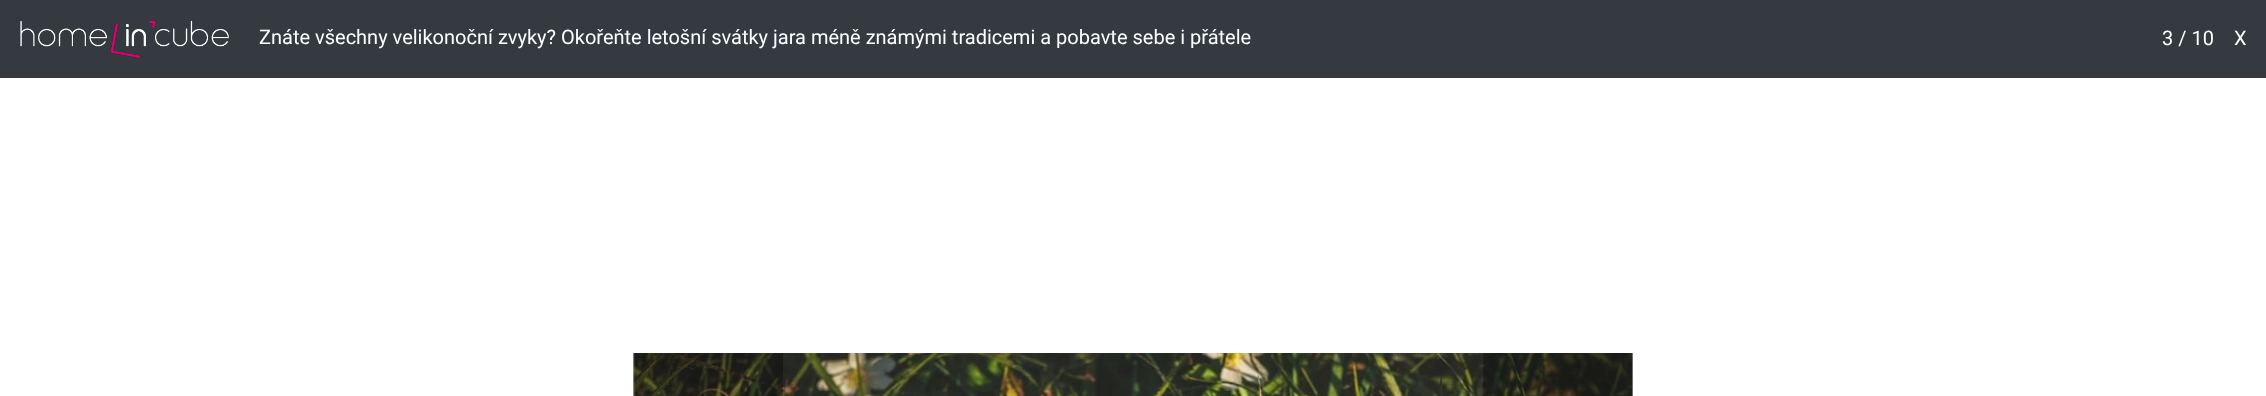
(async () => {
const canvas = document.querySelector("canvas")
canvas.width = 2266
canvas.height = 396
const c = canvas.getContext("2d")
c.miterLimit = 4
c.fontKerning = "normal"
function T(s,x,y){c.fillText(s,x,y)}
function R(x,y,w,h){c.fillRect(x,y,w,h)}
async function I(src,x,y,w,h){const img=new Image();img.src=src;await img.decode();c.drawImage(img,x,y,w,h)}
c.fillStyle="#fff"
R(0,0,2266,396)
c.fillStyle="#343a40"
R(0,0,2266,78)
await I("1.png",20,20,209,38)
c.font="20px Roboto"
c.fillStyle="#fff"
T("Znáte všechny velikonoční zvyky? Okořeňte letošní svátky jara méně známými tradicemi a pobavte sebe i přátele",259,44)
T("3 / 10",2162,45)
T("X",2234,45)
await I("2.png",633,353,1000,43)
c.fillStyle="#0000004d"
R(633,353,150,43)
R(1483,353,150,43)
})()
